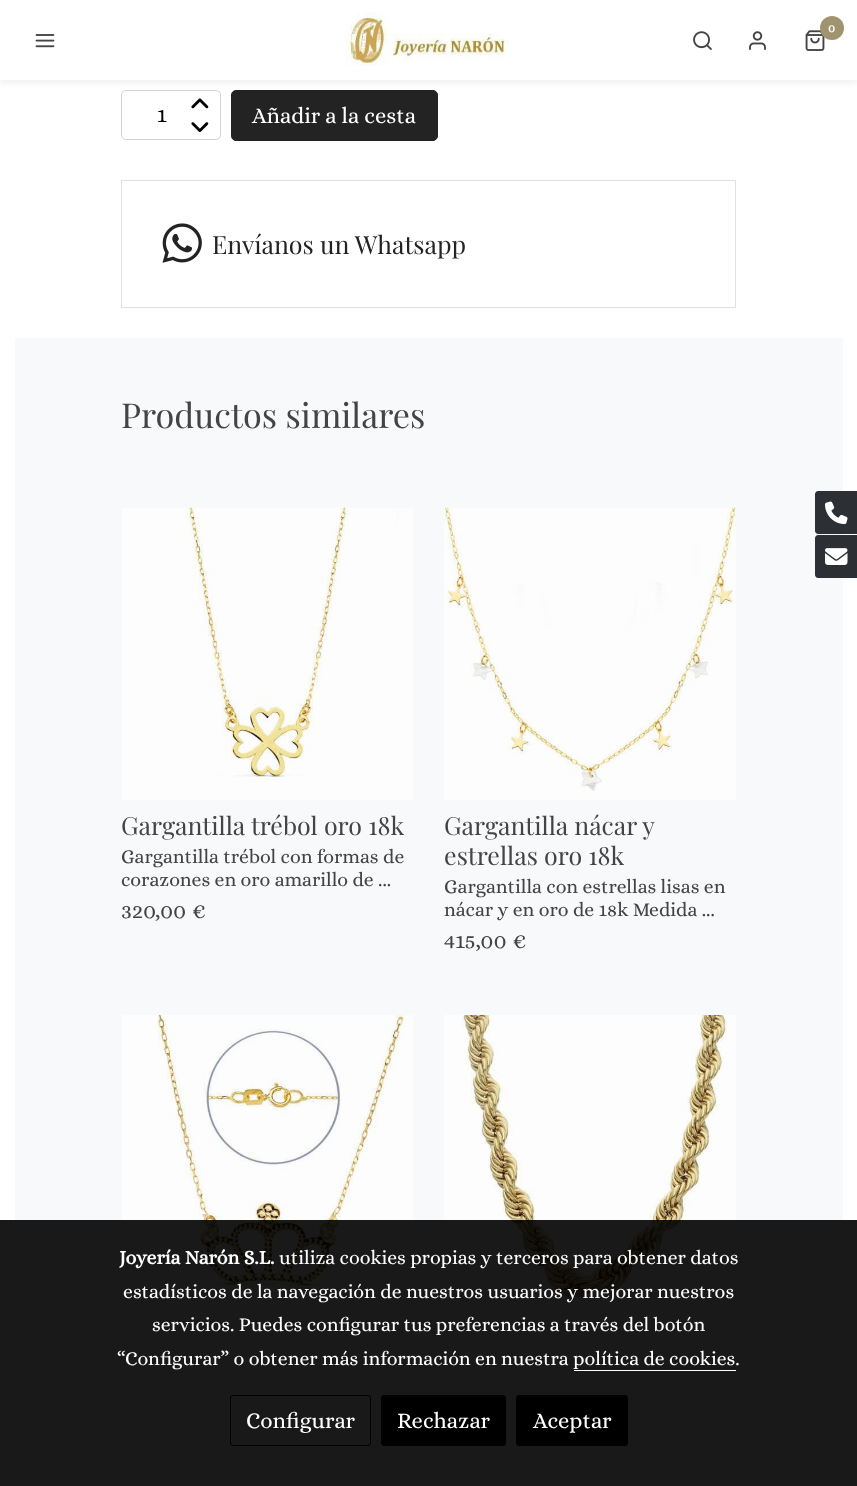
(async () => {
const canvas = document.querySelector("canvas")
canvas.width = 857
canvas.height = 1486
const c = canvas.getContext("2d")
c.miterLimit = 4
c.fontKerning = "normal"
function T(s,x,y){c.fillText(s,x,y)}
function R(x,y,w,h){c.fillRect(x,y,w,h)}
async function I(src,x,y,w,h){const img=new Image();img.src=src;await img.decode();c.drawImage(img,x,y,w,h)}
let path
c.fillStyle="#fff"
R(0,0,857,1486)
c.beginPath()
c.roundRect(121.5,90.5,99,49,4.5)
c.strokeStyle="#ced4da"
c.stroke()
c.fillStyle="#232323"
c.beginPath()
c.roundRect(231.5,90.5,206,50,4.5)
c.fill()
c.strokeStyle="#232323"
c.stroke()
c.fillStyle="#0000000f"
c.filter="blur(3px)"
c.beginPath()
c.rect(0,3,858,80)
c.fill()
c.filter="none"
c.fillStyle="#fff"
R(0,0,857,80)
await I("1.png",345,12,164,54)
await I("2.png",805,30,20,21)
c.fillStyle="#a09370"
c.beginPath()
c.arc(832,28,12,0,7)
c.fill()
c.font="bold 12px Alice"
c.fillStyle="#fff"
T("0",828,32)
await I("3.png",693,31,19,19)
await I("4.png",749,31,17,19)
await I("5.png",35,34,20,14)
c.font="22.5px Alice"
c.fillStyle="#000"
T("1",157,122)
await I("6.png",191,98,18,11)
await I("7.png",191,122,18,10)
c.fillStyle="#fff"
T("Añadir a la cesta",252,123)
c.strokeStyle="#dee2e6"
c.strokeRect(121.5,180.5,614,127)
await I("8.png",162,223,40,40)
c.font="25px Playfair Display"
c.fillStyle="#232323"
T("Envíanos un Whatsapp",212,254)
c.fillStyle="#f8f9fa"
R(15,338,828,1148)
c.font="34.25px Playfair Display"
c.fillStyle="#444"
T("Productos similares",121,428)
await I("9.png",122,507,291,293)
c.font="25px Playfair Display"
T("Gargantilla trébol oro 18k",121,835)
c.font="19.7px Alice"
T("Gargantilla trébol con formas de",121,863)
T("corazones en oro amarillo de ...",121,886)
c.font="22.5px Alice"
T("320,00 €",121,918)
await I("10.png",444,507,292,293)
c.font="25px Playfair Display"
T("Gargantilla nácar y",444,835)
T("estrellas oro 18k",444,865)
c.font="19.7px Alice"
T("Gargantilla con estrellas lisas en",444,893)
T("nácar y en oro de 18k Medida ...",444,916)
c.font="22.5px Alice"
T("415,00 €",444,948)
await I("11.png",122,1015,291,292)
await I("12.png",444,1015,292,292)
c.fillStyle="#212529f2"
path = new Path2D("M818 491h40v43h-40c-1.5 0-3-1.5-3-3v-37c0-1.5 1.5-3 3-3z")
c.fill(path)
await I("13.png",825,501,23,24)
path = new Path2D("M818 535h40v43h-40c-1.5 0-3-1.5-3-3v-37c0-1.5 1.5-3 3-3z")
c.fill(path)
await I("14.png",825,548,23,17)
c.fillStyle="#000000e6"
R(0,1220,857,266)
c.font="bold 19.7px Alice"
c.fillStyle="#fff"
T("Joyería Narón S.L.",119,1264)
c.font="19.7px Alice"
T("utiliza cookies propias y terceros para obtener datos",279,1264)
T("estadísticos de la navegación de nuestros usuarios y mejorar nuestros",123,1298)
T("servicios. Puedes configurar tus preferencias a través del botón",152,1331)
T("“Configurar” o obtener más información en nuestra política de cookies.",117,1365)
R(574,1370,162,1)
c.beginPath()
c.roundRect(230.5,1395.5,140,50,2.5)
c.strokeStyle="#000"
c.stroke()
c.font="22.5px Alice"
T("Configurar",246,1428)
c.fillStyle="#000"
c.beginPath()
c.roundRect(381.5,1395.5,124,50,2.5)
c.fill()
c.stroke()
c.fillStyle="#fff"
T("Rechazar",397,1428)
c.fillStyle="#000"
c.beginPath()
c.roundRect(516.5,1395.5,111,50,2.5)
c.fill()
c.stroke()
c.fillStyle="#fff"
T("Aceptar",533,1428)
})()
